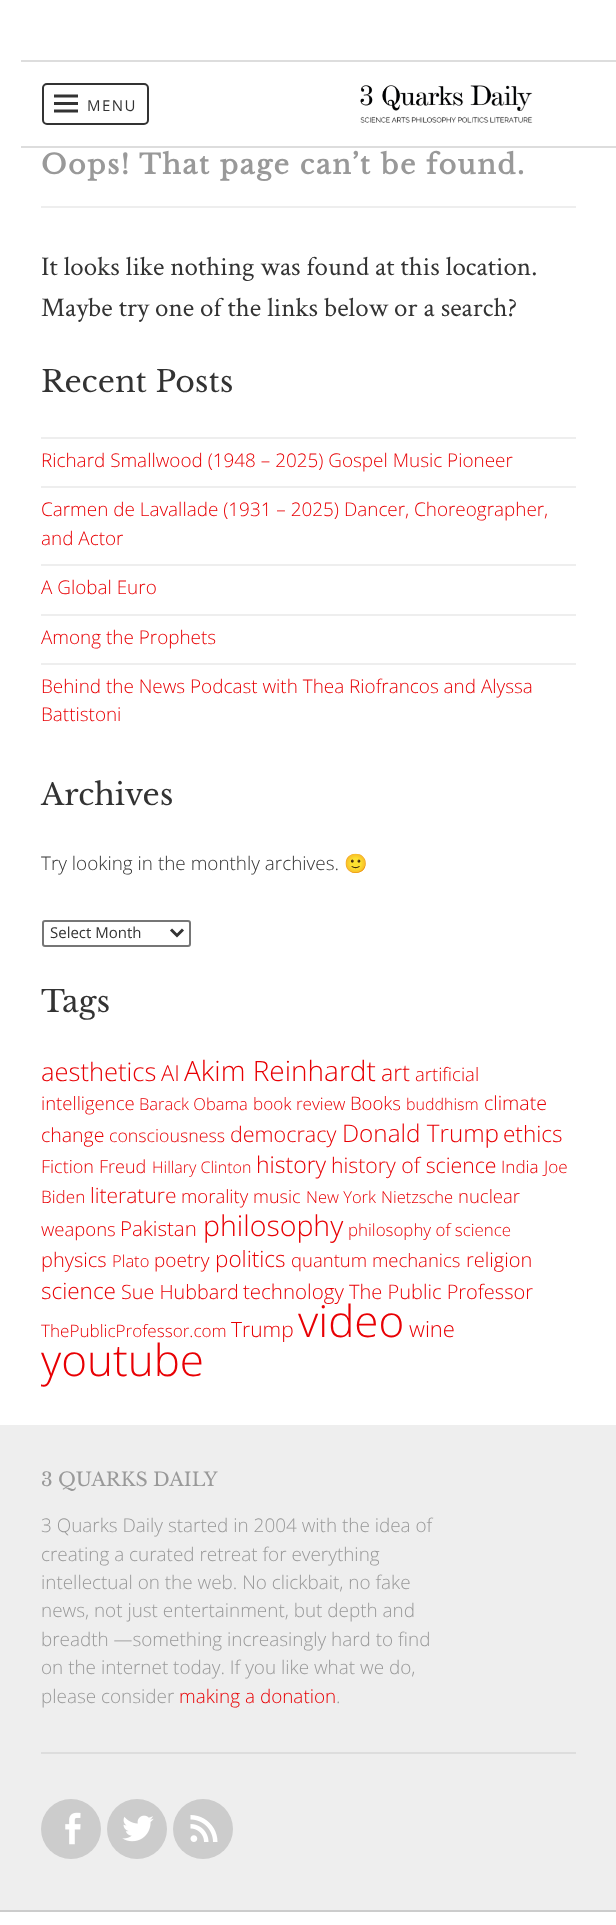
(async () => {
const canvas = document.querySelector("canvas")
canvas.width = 616
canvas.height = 1925
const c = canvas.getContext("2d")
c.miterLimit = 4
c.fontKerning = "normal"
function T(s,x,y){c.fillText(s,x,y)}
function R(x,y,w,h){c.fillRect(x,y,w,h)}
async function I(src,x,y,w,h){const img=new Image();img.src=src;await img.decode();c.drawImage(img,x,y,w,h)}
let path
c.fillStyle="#fff"
R(0,0,616,1925)
c.fillStyle="#ddd"
R(21,60,595,2)
R(21,146,595,2)
c.beginPath()
c.roundRect(43,84,105,40,4)
c.strokeStyle="#333"
c.lineWidth=2
c.stroke()
await I("1.png",54,94,24,19)
c.letterSpacing="1.5px"
c.font="15px Open Sans"
c.fillStyle="#333"
T("MENU",87,111)
await I("2.png",360,85,173,38)
c.fillStyle="#eee"
R(41,206,535,2)
c.font="bold 27px Libre Baskerville"
c.fillStyle="#999"
T("Oops! That page can’t be found.",41,174)
c.letterSpacing="0px"
c.font="27px Crimson Text"
c.fillStyle="#333"
T("It looks like nothing was found at this location.",41,275)
T("Maybe try one of the links below or a search?",41,316)
c.font="30px Libre Baskerville"
T("Recent Posts",41,392)
c.fillStyle="#eee"
R(41,437,535,2)
c.font="300 18.9px Open Sans"
c.fillStyle="#e80004"
T("Richard Smallwood (1948 – 2025) Gospel Music Pioneer",41,467)
c.fillStyle="#eee"
R(41,486,535,2)
c.fillStyle="#e80004"
T("Carmen de Lavallade (1931 – 2025) Dancer, Choreographer,",41,516)
T("and Actor",41,545)
c.fillStyle="#eee"
R(41,564,535,2)
c.fillStyle="#e80004"
T("A Global Euro",41,594)
c.fillStyle="#eee"
R(41,614,535,2)
c.fillStyle="#e80004"
T("Among the Prophets",41,644)
c.fillStyle="#eee"
R(41,663,535,2)
c.fillStyle="#e80004"
T("Behind the News Podcast with Thea Riofrancos and Alyssa",41,693)
T("Battistoni",41,721)
c.font="30px Libre Baskerville"
c.fillStyle="#333"
T("Archives",41,805)
c.font="300 18.9px Open Sans"
T("Try looking in the monthly archives.",41,870)
c.font="18.9px Noto Color Emoji"
T("🙂",344,870)
c.beginPath()
c.roundRect(43,921,147,25,2)
c.strokeStyle="#767676"
c.stroke()
path = new Path2D("M171 929.5l6 6l6-6")
c.strokeStyle="#333"
c.lineWidth=3
c.stroke(path)
c.font="15px Open Sans"
T("Select Month",50,938)
c.font="30px Libre Baskerville"
T("Tags",41,1012)
c.font="300 25.5px Open Sans"
c.fillStyle="#e80004"
T("aesthetics",41,1081)
c.font="300 22px Open Sans"
T("AI",161,1081)
c.font="300 28px Open Sans"
T("Akim Reinhardt",184,1081)
c.font="300 23px Open Sans"
T("art",381,1081)
c.font="300 18.5px Open Sans"
T("artificial",415,1081)
T("intelligence",41,1110)
c.font="300 16.5px Open Sans"
T("Barack Obama",139,1110)
c.font="300 17.1px Open Sans"
T("book review",253,1110)
c.font="300 18.5px Open Sans"
T("Books",350,1110)
c.font="300 16px Open Sans"
T("buddhism",406,1110)
c.font="300 19.5px Open Sans"
T("climate",484,1110)
T("change",41,1142)
c.font="300 17.75px Open Sans"
T("consciousness",109,1142)
c.font="300 21.5px Open Sans"
T("democracy",230,1142)
c.font="300 24.25px Open Sans"
T("Donald Trump",342,1142)
c.font="300 22.5px Open Sans"
T("ethics",503,1142)
c.font="300 18px Open Sans"
T("Fiction",41,1173)
T("Freud",99,1173)
c.font="300 16px Open Sans"
T("Hillary Clinton",152,1173)
c.font="300 23px Open Sans"
T("history",256,1173)
c.font="300 21.25px Open Sans"
T("history of science",331,1173)
c.font="300 17.1px Open Sans"
T("India",501,1173)
T("Joe",544,1173)
T("Biden",41,1203)
c.font="300 21px Open Sans"
T("literature",90,1203)
c.font="300 18.5px Open Sans"
T("morality",181,1203)
c.font="300 18px Open Sans"
T("music",253,1203)
c.font="300 16.5px Open Sans"
T("New York",306,1203)
T("Nietzsche",381,1203)
c.font="300 18.5px Open Sans"
T("nuclear",458,1203)
T("weapons",41,1236)
c.font="300 20.5px Open Sans"
T("Pakistan",120,1236)
c.font="300 28.5px Open Sans"
T("philosophy",203,1236)
c.font="300 16.9px Open Sans"
T("philosophy of science",348,1236)
c.font="300 20px Open Sans"
T("physics",41,1267)
c.font="300 16.5px Open Sans"
T("Plato",112,1267)
c.font="300 19px Open Sans"
T("poetry",154,1267)
c.font="300 22.5px Open Sans"
T("politics",215,1267)
c.font="300 18.5px Open Sans"
T("quantum mechanics",291,1267)
c.font="300 20px Open Sans"
T("religion",466,1267)
c.font="300 22.5px Open Sans"
T("science",41,1299)
c.font="300 19.75px Open Sans"
T("Sue Hubbard",121,1299)
c.font="300 20.5px Open Sans"
T("technology",243,1299)
c.font="300 20px Open Sans"
T("The Public Professor",349,1299)
c.font="300 17.1px Open Sans"
T("ThePublicProfessor.com",41,1337)
c.font="300 21px Open Sans"
T("Trump",231,1337)
c.font="300 44px Open Sans"
T("video",298,1337)
c.font="300 22px Open Sans"
T("wine",409,1337)
c.font="300 44px Open Sans"
T("youtube",41,1376)
c.fillStyle="#eee"
R(0,1425,616,485)
c.font="18.9px Libre Baskerville"
c.fillStyle="#999"
T("3 QUARKS DAILY",41,1486)
c.font="300 18.9px Open Sans"
T("3 Quarks Daily started in 2004 with the idea of",41,1532)
T("creating a curated retreat for everything",41,1561)
T("intellectual on the web. No clickbait, no fake",41,1589)
T("news, not just entertainment, but depth and",41,1617)
T("breadth —something increasingly hard to find",41,1646)
T("on the internet today. If you like what we do,",41,1674)
T("please consider",41,1703)
c.fillStyle="#e80004"
T("making a donation",179,1703)
c.fillStyle="#999"
T(".",336,1703)
c.fillStyle="#ddd"
R(41,1752,535,2)
c.fillStyle="#ccc"
c.beginPath()
c.arc(71,1829,30,0,7)
c.fill()
await I("3.png",65,1812,16,33)
c.beginPath()
c.arc(137,1829,30,0,7)
c.fill()
await I("4.png",122,1815,32,27)
c.beginPath()
c.arc(203,1829,30,0,7)
c.fill()
await I("5.png",190,1815,28,27)
R(0,1910,616,2)
})()
